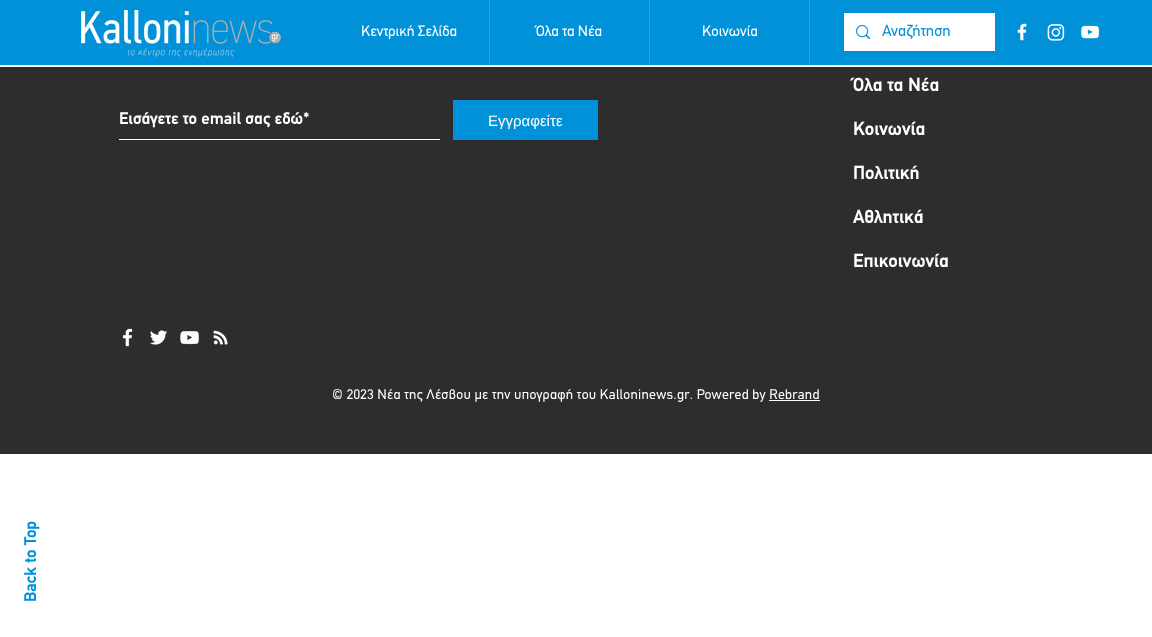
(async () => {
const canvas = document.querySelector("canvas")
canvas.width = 1152
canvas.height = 637
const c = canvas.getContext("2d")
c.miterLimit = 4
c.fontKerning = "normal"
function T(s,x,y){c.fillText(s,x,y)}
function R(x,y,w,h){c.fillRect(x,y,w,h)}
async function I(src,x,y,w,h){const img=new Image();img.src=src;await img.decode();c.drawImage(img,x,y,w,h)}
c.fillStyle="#fff"
R(0,0,1152,637)
c.fillStyle="#0091d8"
R(0,0,1152,65)
await I("1.png",81,10,200,47)
c.font="15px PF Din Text"
c.fillStyle="#fff"
T("Κεντρική Σελίδα",361,36)
c.fillStyle="#26a2de"
R(489,0,1,65)
c.fillStyle="#fff"
T("Όλα τα Νέα",536,36)
c.fillStyle="#26a2de"
R(649,0,1,65)
c.fillStyle="#fff"
T("Κοινωνία",702,36)
c.fillStyle="#26a2de"
R(809,0,1,65)
c.fillStyle="#fff"
R(844,13,151,38)
await I("2.png",856,25,14,14)
c.font="16px PF Din Text"
c.fillStyle="#0091d8"
T("Αναζήτηση",882,36)
await I("3.png",1017,23,10,18)
await I("4.png",1047,24,18,17)
await I("5.png",1081,25,19,14)
c.fillStyle="#fafafa"
R(0,65,1152,2)
c.fillStyle="#2d2d2d"
R(0,67,1152,387)
c.fillStyle="#fff"
R(119,139,321,1)
c.font="bold 17px PF Din Text"
T("Εισάγετε το email σας εδώ*",119,124)
c.fillStyle="#0091d8"
R(453,100,145,40)
c.font="15px Liberation Sans"
c.fillStyle="#fff"
T("Εγγραφείτε",488,126)
c.font="bold 19px PF Din Text"
T("Όλα τα Νέα",853,91)
T("Κοινωνία",853,135)
T("Πολιτική",853,179)
T("Αθλητικά",853,223)
T("Επικοινωνία",853,267)
await I("6.png",122,328,11,19)
await I("7.png",150,330,17,15)
await I("8.png",180,331,19,14)
await I("9.png",213,330,15,15)
c.letterSpacing="0.28px"
c.font="14px PF Din Text"
T("© 2023 Νέα της Λέσβου με την υπογραφή του Kalloninews.gr. Powered by Rebrand",332,399)
R(769,400,51,1)
c.letterSpacing="0px"
c.font="bold 17px PF Din Text"
c.fillStyle="#0091d8"
c.save()
c.translate(36,602)
c.rotate(-90 * Math.PI / 180)
c.fillText("Back to Top",0,0)
c.restore()
})()
